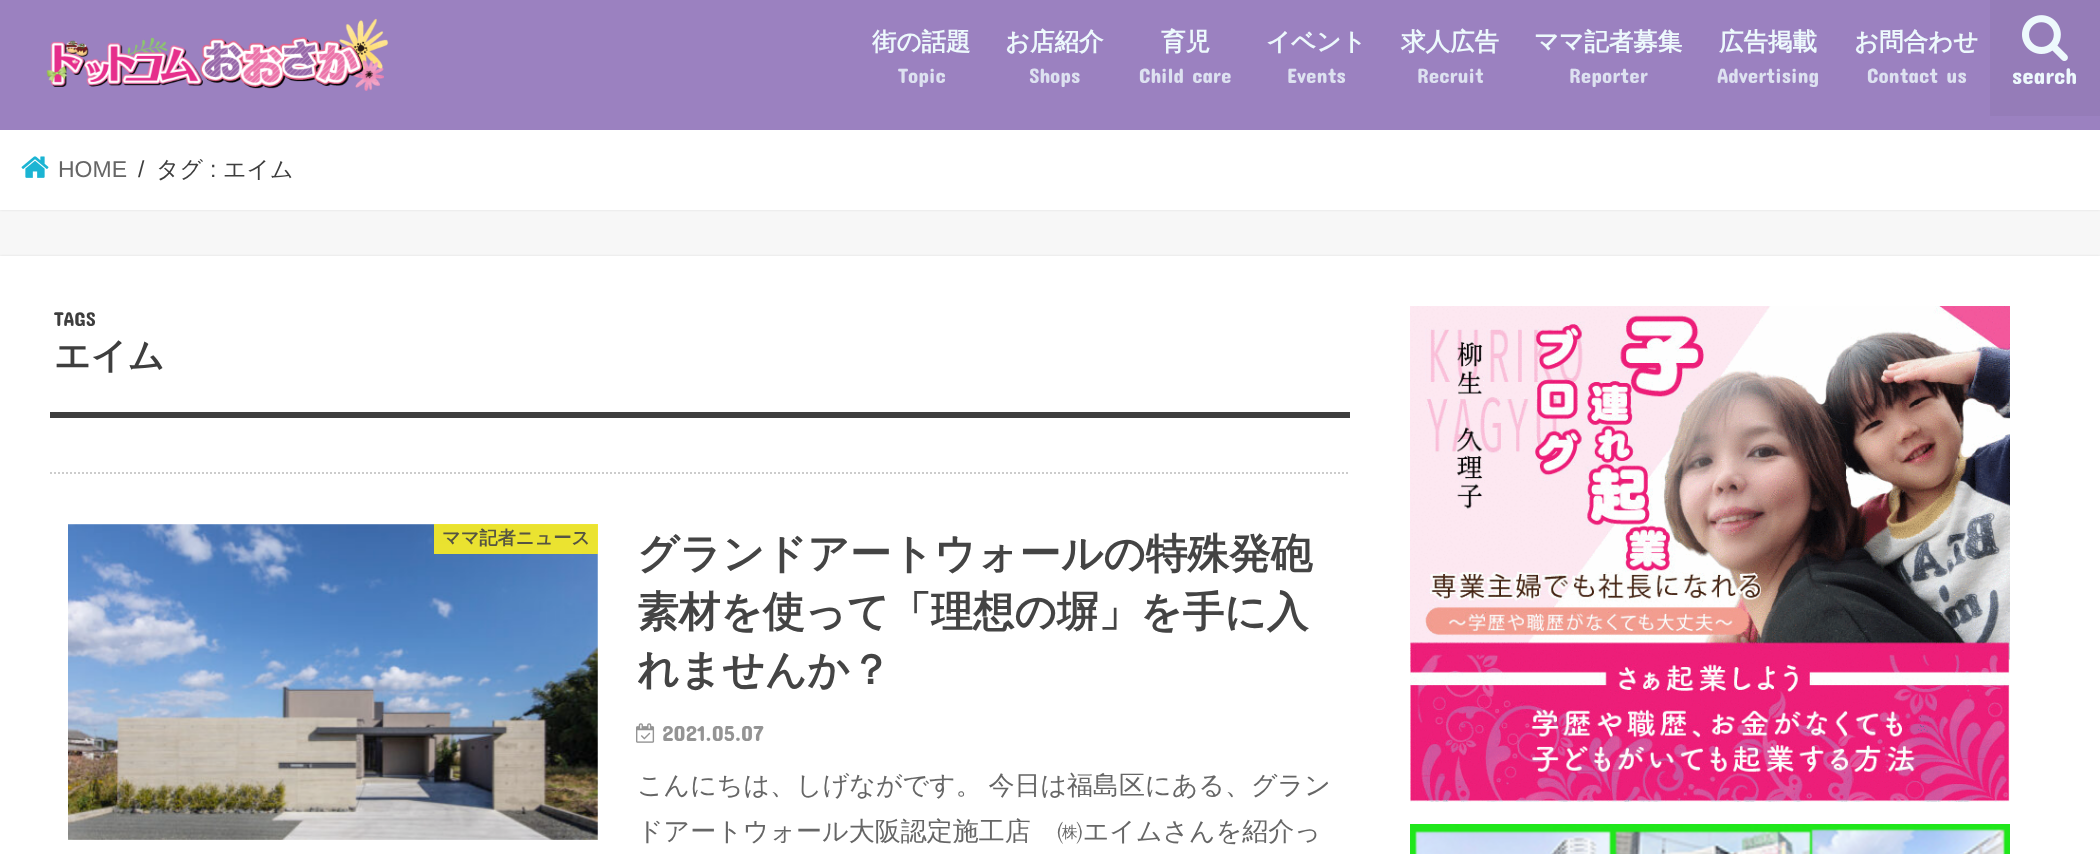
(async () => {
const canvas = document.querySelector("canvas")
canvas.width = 2100
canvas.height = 854
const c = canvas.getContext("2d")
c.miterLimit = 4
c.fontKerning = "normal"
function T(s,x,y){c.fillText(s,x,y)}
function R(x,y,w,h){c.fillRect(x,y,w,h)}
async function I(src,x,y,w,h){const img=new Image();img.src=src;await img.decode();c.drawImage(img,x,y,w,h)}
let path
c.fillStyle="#f7f7f7"
R(0,0,2100,854)
c.fillStyle="#ddd"
c.filter="blur(1px)"
c.beginPath()
c.rect(0,130,2100,80)
c.fill()
c.filter="none"
c.fillStyle="#9b81c0"
R(0,0,2100,130)
await I("1.png",46,18,343,73)
c.font="bold 24.5px WenQuanYi Zen Hei"
c.fillStyle="#edf9fc"
T("街の話題",872,50)
c.font="21px Concert One"
c.fillStyle="#dde1f0"
T("Topic",898,83)
c.font="bold 24.5px WenQuanYi Zen Hei"
c.fillStyle="#edf9fc"
T("お店紹介",1005,50)
c.font="21px Concert One"
c.fillStyle="#dde1f0"
T("Shops",1029,83)
c.font="bold 24.5px WenQuanYi Zen Hei"
c.fillStyle="#edf9fc"
T("育児",1161,50)
c.font="21px Concert One"
c.fillStyle="#dde1f0"
T("Child care",1139,83)
c.font="bold 24.5px WenQuanYi Zen Hei"
c.fillStyle="#edf9fc"
T("イベント",1266,50)
c.font="21px Concert One"
c.fillStyle="#dde1f0"
T("Events",1287,83)
c.font="bold 24.5px WenQuanYi Zen Hei"
c.fillStyle="#edf9fc"
T("求人広告",1401,50)
c.font="21px Concert One"
c.fillStyle="#dde1f0"
T("Recruit",1417,83)
c.font="bold 24.5px WenQuanYi Zen Hei"
c.fillStyle="#edf9fc"
T("ママ記者募集",1534,50)
c.font="21px Concert One"
c.fillStyle="#dde1f0"
T("Reporter",1569,83)
c.font="bold 24.5px WenQuanYi Zen Hei"
c.fillStyle="#edf9fc"
T("広告掲載",1719,50)
c.font="21px Concert One"
c.fillStyle="#dde1f0"
T("Advertising",1717,83)
c.font="bold 24.5px WenQuanYi Zen Hei"
c.fillStyle="#edf9fc"
T("お問合わせ",1854,50)
c.font="21px Concert One"
c.fillStyle="#dde1f0"
T("Contact us",1867,83)
c.fillStyle="#957cb8"
R(1990,0,110,116)
await I("2.png",2022,15,46,46)
c.font="23px Concert One"
c.fillStyle="#edf9fc"
T("search",2012,84)
c.fillStyle="#fff"
R(0,130,2100,80)
await I("3.png",21,156,28,22)
c.font="23px Liberation Sans"
c.fillStyle="#666"
T("HOME",58,177)
c.fillStyle="#3e3e3e"
T("/",138,177)
c.font="500 23px WenQuanYi Zen Hei"
T("タグ",156,177)
c.font="23px Liberation Sans"
T(":",210,177)
c.font="500 23px WenQuanYi Zen Hei"
T("エイム",223,177)
c.fillStyle="#ddd"
c.filter="blur(1px)"
c.beginPath()
c.rect(0,256,2100,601)
c.fill()
c.filter="none"
c.fillStyle="#fff"
R(0,256,2100,598)
c.fillStyle="#3e3e3e"
R(50,412,1300,6)
c.font="20px Concert One"
T("TAGS",54,326)
c.font="bold 36px WenQuanYi Zen Hei"
T("エイム",54,368)
path = new Path2D("M50 473h1300")
c.strokeStyle="#ccc"
c.lineWidth=2
c.setLineDash([2,2])
c.stroke(path)
await I("4.png",68,524,530,316)
c.fillStyle="#fcee21e6"
R(434,524,164,30)
c.font="bold 18.25px WenQuanYi Zen Hei"
c.fillStyle="#555442"
T("ママ記者ニュース",442,544)
c.font="bold 41.6px WenQuanYi Zen Hei"
c.fillStyle="#444"
T("グランドアートウォールの特殊発砲",637,568)
T("素材を使って「理想の塀」を手に入",637,626)
T("れませんか？",637,684)
await I("5.png",636,723,19,20)
c.font="22px Concert One"
c.fillStyle="#949494"
T("2021.05.07",662,741)
c.wordSpacing="-1px"
c.font="500 26px WenQuanYi Zen Hei"
c.fillStyle="#666"
T("こんにちは、しげながです。 今日は福島区にある、グラン",637,794)
c.wordSpacing="0px"
T("ドアートウォール大阪認定施工店　㈱エイムさんを紹介っ",637,840)
await I("6.png",1410,306,600,496)
await I("7.png",1410,824,600,30)
})()
